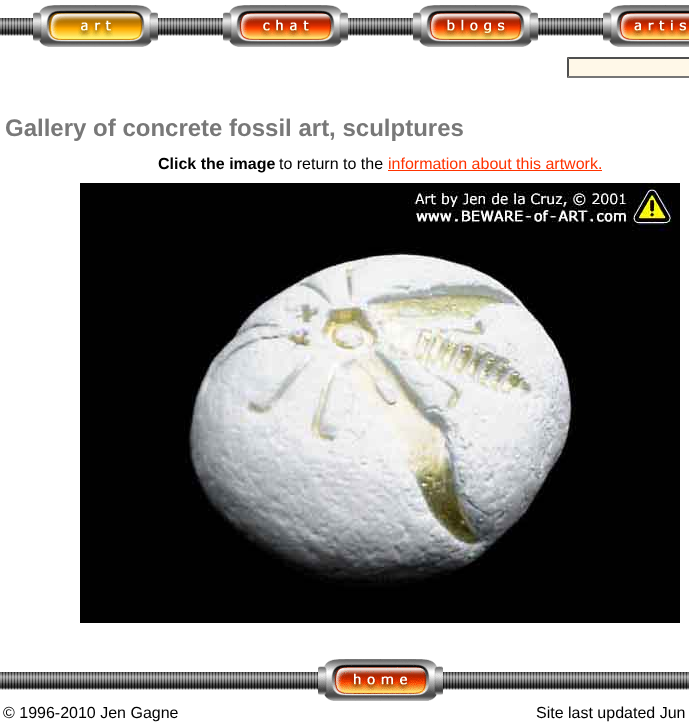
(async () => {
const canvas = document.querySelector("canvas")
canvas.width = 689
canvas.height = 722
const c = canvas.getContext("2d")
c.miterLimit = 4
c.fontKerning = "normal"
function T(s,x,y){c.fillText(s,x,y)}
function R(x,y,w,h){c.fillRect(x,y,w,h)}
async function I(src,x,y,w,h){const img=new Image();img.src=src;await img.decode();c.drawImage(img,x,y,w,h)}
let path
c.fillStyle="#fff"
R(0,0,689,722)
await I("1.png",0,18,603,18)
await I("2.png",33,5,125,42)
await I("3.png",223,5,125,42)
await I("4.png",413,5,125,42)
await I("5.png",603,5,86,42)
c.fillStyle="#fff8e8"
R(567,57,122,21)
c.fillStyle="#4f4f4f"
path = new Path2D("M567 57h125l-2 2h-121z")
c.fill(path)
c.fillStyle="#767676"
path = new Path2D("M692 78h-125l2-2h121z")
c.fill(path)
c.fillStyle="#4f4f4f"
path = new Path2D("M567 78v-21l2 2v17z")
c.fill(path)
c.font="bold 24px Liberation Sans"
c.fillStyle="#787878"
T("Gallery of concrete fossil art, sculptures",5,136)
c.font="bold 16px Liberation Sans"
c.fillStyle="#000"
T("Click the image",158,169)
c.font="16px Liberation Sans"
T("to return to the",279,169)
c.fillStyle="#f30"
T("information about this artwork.",388,169)
R(388,170,214,1)
await I("6.png",80,183,600,440)
await I("7.png",0,672,689,18)
await I("8.png",318,659,125,42)
c.fillStyle="#000"
T("© 1996-2010 Jen Gagne",3,718)
T("Site last updated Jun",536,718)
})()
